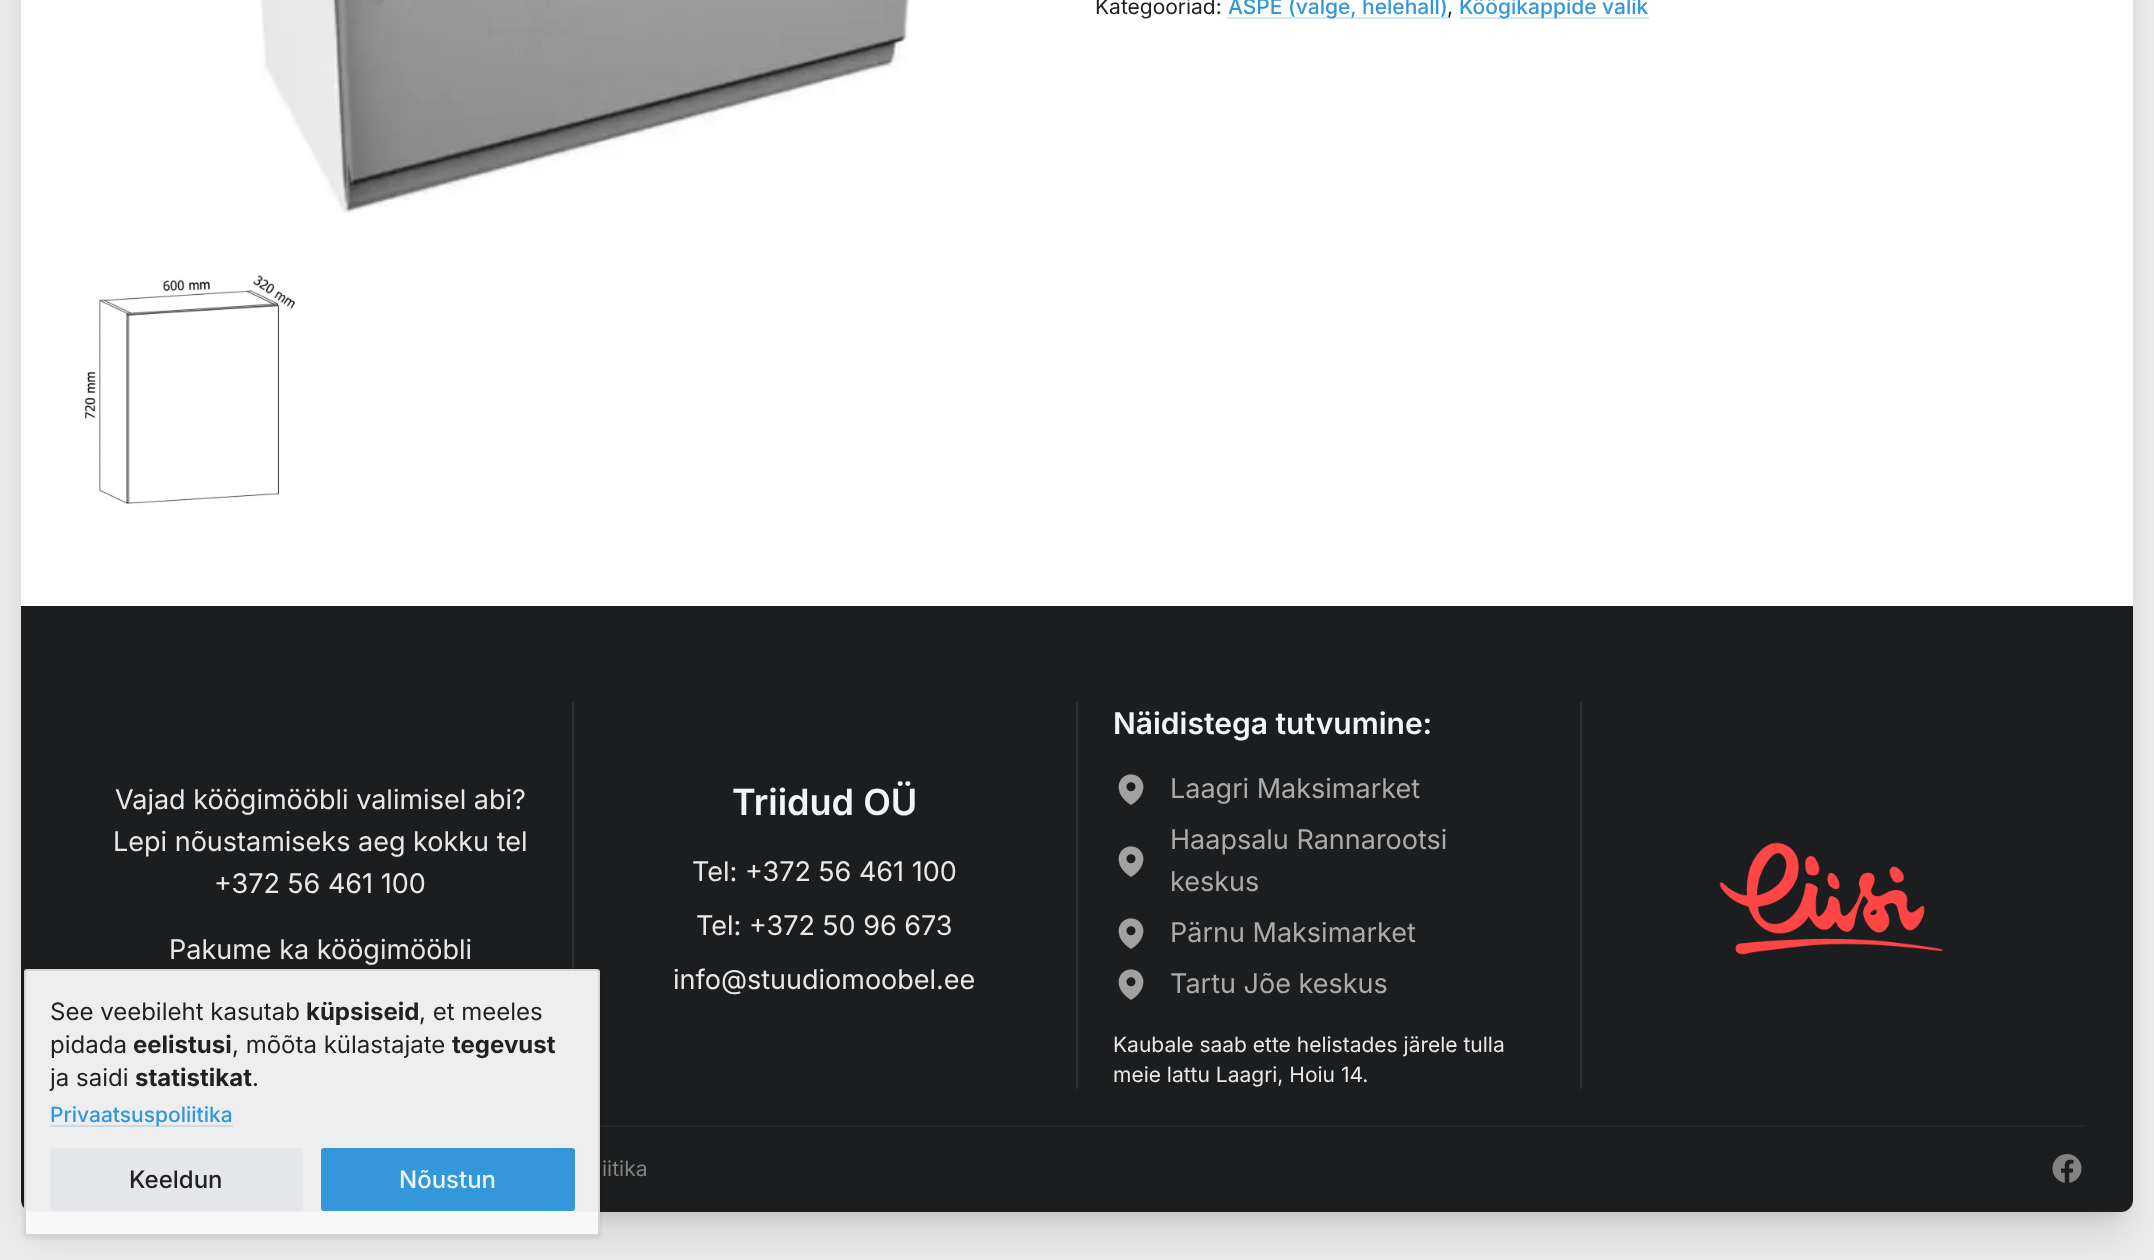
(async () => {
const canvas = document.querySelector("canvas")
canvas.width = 2154
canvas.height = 1260
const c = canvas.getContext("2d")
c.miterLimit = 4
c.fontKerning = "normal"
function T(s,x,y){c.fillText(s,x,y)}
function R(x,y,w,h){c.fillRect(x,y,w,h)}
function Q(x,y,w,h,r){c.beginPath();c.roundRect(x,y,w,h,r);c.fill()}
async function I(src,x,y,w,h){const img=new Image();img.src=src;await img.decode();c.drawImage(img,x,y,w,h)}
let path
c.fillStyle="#ececec"
R(0,0,2154,1260)
c.fillStyle="#0000001a"
c.filter="blur(7.5px)"
c.beginPath()
c.roundRect(30,-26,2094,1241,3)
c.fill()
c.filter="none"
c.filter="blur(19px)"
c.beginPath()
c.roundRect(29,-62,2097,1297,5)
c.fill()
c.filter="none"
c.fillStyle="#fff"
Q(21,-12,2112,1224,12)
await I("1.png",260,0,649,214)
await I("2.png",84,274,212,231)
c.font="21px Inter"
c.fillStyle="#212121"
T("Kategooriad:",1095,14)
c.fillStyle="#d3e8f7"
R(1227,17,221,2)
c.font="500 21px Inter"
c.fillStyle="#3397da"
T("ASPE (valge, helehall)",1228,14)
c.font="21px Inter"
c.fillStyle="#212121"
T(",",1447,14)
c.fillStyle="#d3e8f7"
R(1460,17,189,2)
c.font="500 21px Inter"
c.fillStyle="#3397da"
T("Köögikappide valik",1459,14)
c.fillStyle="#1c1d1e"
c.beginPath()
c.roundRect(21,606,2112,606,[0,0,12,12])
c.fill()
c.fillStyle="#2e2f30"
R(572,702,2,387)
c.font="27px Inter"
c.fillStyle="#e8e8e9"
T("Vajad köögimööbli valimisel abi?",115,809)
T("Lepi nõustamiseks aeg kokku tel",113,851)
T("+372 56 461 100",214,893)
T("Pakume ka köögimööbli",169,959)
c.fillStyle="#2e2f30"
R(1076,702,2,387)
c.font="600 36px Inter"
c.fillStyle="#f3f4f6"
T("Triidud OÜ",732,815)
c.font="27px Inter"
c.fillStyle="#e8e8e9"
T("Tel: +372 56 461 100",692,881)
T("Tel: +372 50 96 673",696,935)
T("info@stuudiomoobel.ee",673,989)
c.fillStyle="#2e2f30"
R(1580,702,2,387)
c.font="600 30px Inter"
c.fillStyle="#f3f4f6"
T("Näidistega tutvumine:",1113,734)
await I("3.png",1118,774,26,31)
c.font="27px Inter"
c.fillStyle="#ababac"
T("Laagri Maksimarket",1170,798)
await I("3.png",1118,846,26,31)
T("Haapsalu Rannarootsi",1170,849)
T("keskus",1170,891)
await I("3.png",1118,918,26,31)
T("Pärnu Maksimarket",1170,942)
await I("3.png",1118,969,26,31)
T("Tartu Jõe keskus",1170,993)
c.font="21px Inter"
c.fillStyle="#e8e8e9"
T("Kaubale saab ette helistades järele tulla",1113,1052)
T("meie lattu Laagri, Hoiu 14.",1113,1082)
await I("4.png",1719,842,225,113)
c.fillStyle="#252627"
R(233,1125,1852,2)
c.fillStyle="#828383"
T("iitika",602,1176)
await I("5.png",2052,1154,30,29)
c.save()
path = new Path2D("M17 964h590v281h-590zm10 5h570c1.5 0 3 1.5 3 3v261c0 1.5-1.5 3-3 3h-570c-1.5 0-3-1.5-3-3v-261c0-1.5 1.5-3 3-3z")
c.clip(path,"evenodd")
c.fillStyle="#0000001a"
c.filter="blur(2px)"
c.beginPath()
c.roundRect(24,971,576,267,3)
c.fill()
c.filter="none"
c.restore()
c.fillStyle="#fafafaf2"
c.beginPath()
c.roundRect(25,970,574,265,2)
c.fill()
c.strokeStyle="#d4d4d5"
c.lineWidth=2
c.stroke()
c.font="24px Inter"
c.fillStyle="#212121"
T("See veebileht kasutab",50,1020)
c.font="bold 24px Inter"
T("küpsiseid",306,1020)
c.font="24px Inter"
T(", et meeles",419,1020)
T("pidada",50,1053)
c.font="bold 24px Inter"
T("eelistusi",133,1053)
c.font="24px Inter"
T(", mõõta külastajate",232,1053)
c.font="bold 24px Inter"
T("tegevust",452,1053)
c.font="24px Inter"
T("ja saidi",50,1086)
c.font="bold 24px Inter"
T("statistikat",135,1086)
c.font="24px Inter"
T(".",252,1086)
c.fillStyle="#c7dceb"
R(50,1125,183,2)
c.font="500 21px Inter"
c.fillStyle="#3397da"
T("Privaatsuspoliitika",50,1122)
c.fillStyle="#e5e7eb"
Q(50,1148,253,63,3)
c.font="500 24px Inter"
c.fillStyle="#212121"
T("Keeldun",129,1188)
c.fillStyle="#3397da"
c.beginPath()
c.roundRect(322,1149,252,61,2)
c.fill()
c.strokeStyle="#3397da"
c.stroke()
c.fillStyle="#ebf5fb"
T("Nõustun",399,1188)
})()
